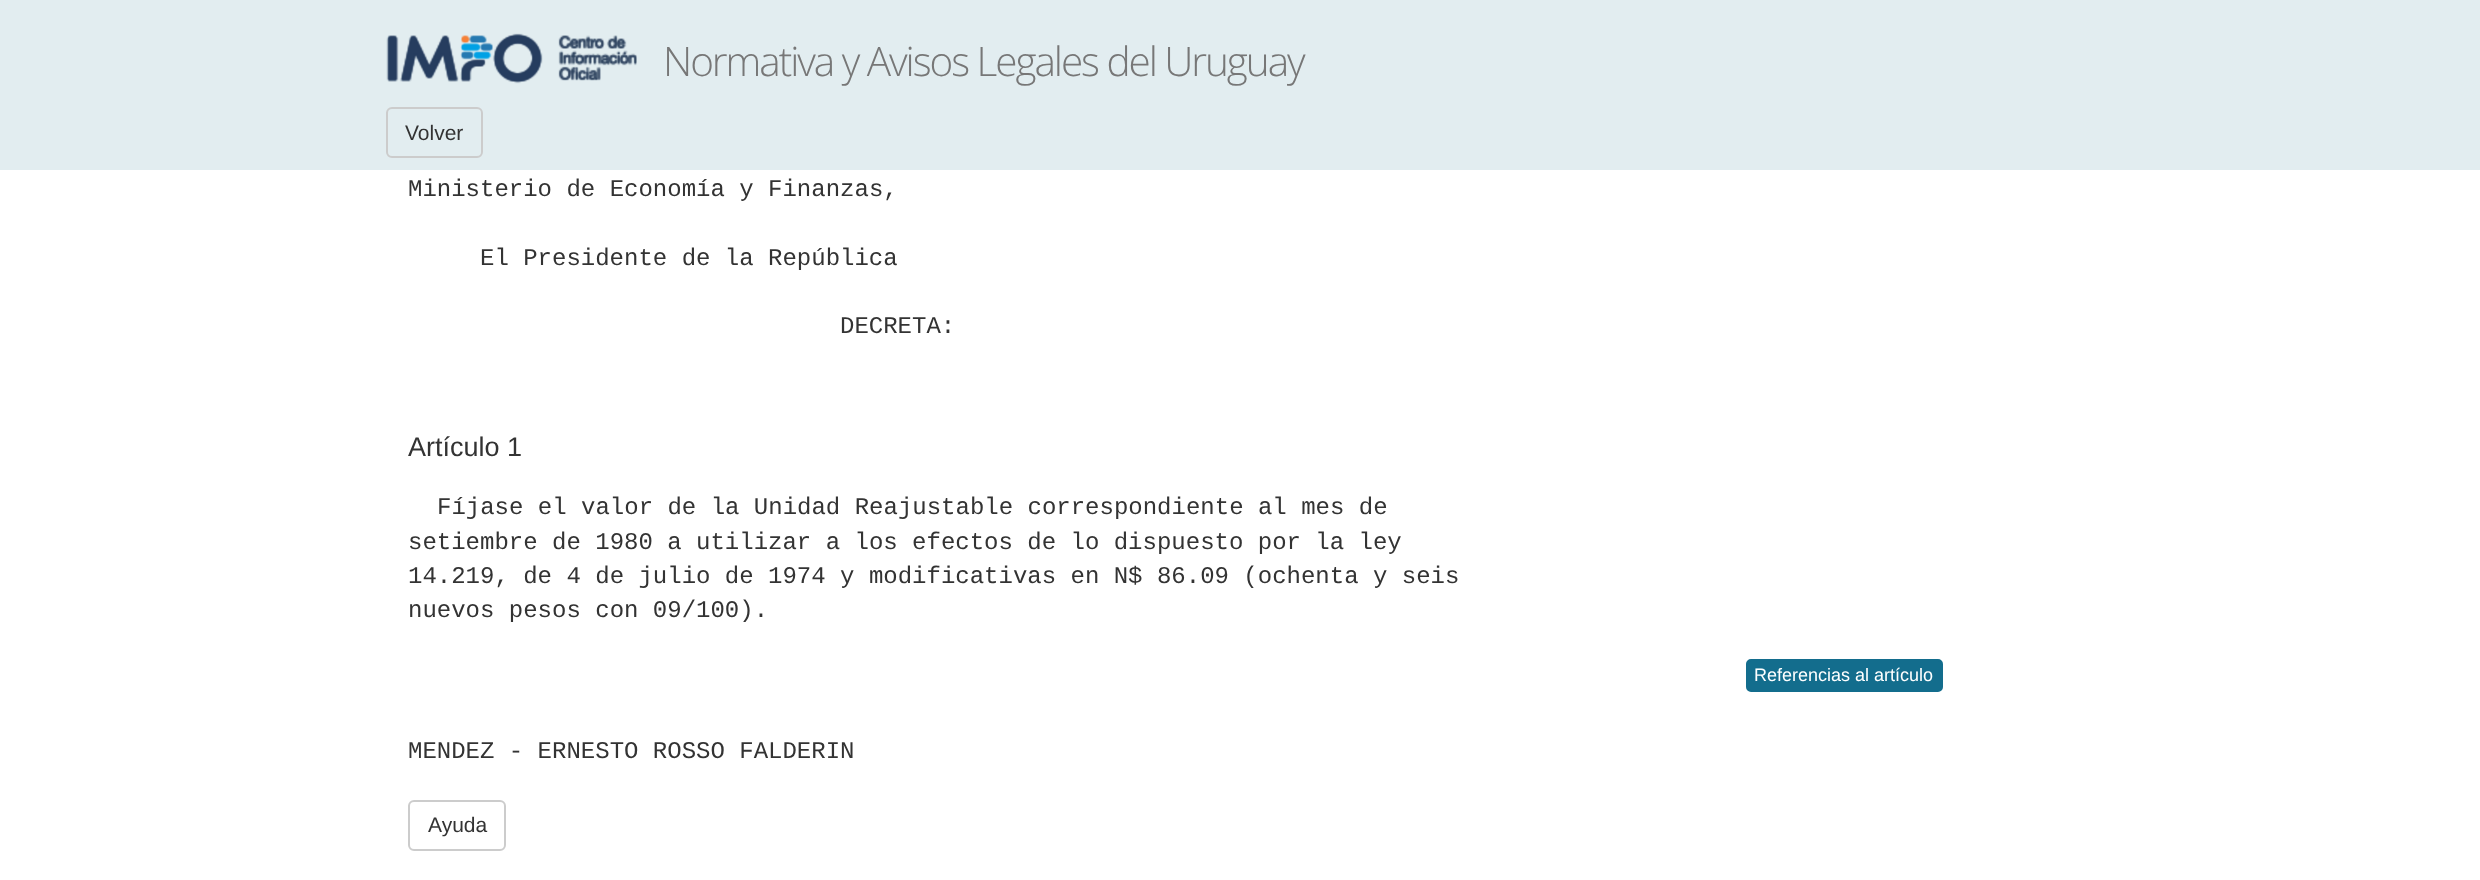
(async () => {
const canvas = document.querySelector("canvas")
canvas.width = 2480
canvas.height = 880
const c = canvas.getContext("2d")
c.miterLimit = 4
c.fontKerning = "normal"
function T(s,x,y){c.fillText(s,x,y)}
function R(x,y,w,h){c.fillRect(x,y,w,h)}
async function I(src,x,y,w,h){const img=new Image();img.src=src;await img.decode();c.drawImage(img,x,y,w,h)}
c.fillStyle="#fff"
R(0,0,2480,880)
c.fillStyle="#e2edf0"
R(0,0,2480,170)
await I("1.png",386,33,251,51)
await I("2.png",387,34,250,49)
c.letterSpacing="-2.05px"
c.font="300 40.5px Open Sans"
c.fillStyle="#777"
T("Normativa y Avisos Legales del Uruguay",663,76)
c.beginPath()
c.roundRect(387,108,95,49,5)
c.strokeStyle="#ccc"
c.lineWidth=2
c.stroke()
c.letterSpacing="0px"
c.font="21px Liberation Sans"
c.fillStyle="#333"
T("Volver",405,140)
c.font="24px Liberation Mono"
T("Ministerio de Economía y Finanzas,",408,196)
T("El Presidente de la República",480,265)
T("DECRETA:",840,333)
c.font="27px Liberation Sans"
T("Artículo 1",408,456)
c.font="24px Liberation Mono"
T("Fíjase el valor de la Unidad Reajustable correspondiente al mes de",437,514)
T("setiembre de 1980 a utilizar a los efectos de lo dispuesto por la ley",408,549)
T("14.219, de 4 de julio de 1974 y modificativas en N$ 86.09 (ochenta y seis",408,583)
T("nuevos pesos con 09/100).",408,617)
c.fillStyle="#136d8d"
c.beginPath()
c.roundRect(1747,660,195,31,4)
c.fill()
c.strokeStyle="#136d8d"
c.stroke()
c.font="18px Liberation Sans"
c.fillStyle="#fff"
T("Referencias al artículo",1754,681)
c.font="24px Liberation Mono"
c.fillStyle="#333"
T("MENDEZ - ERNESTO ROSSO FALDERIN",408,758)
c.beginPath()
c.roundRect(409,801,96,49,5)
c.strokeStyle="#ccc"
c.stroke()
c.font="21px Liberation Sans"
T("Ayuda",428,832)
})()
